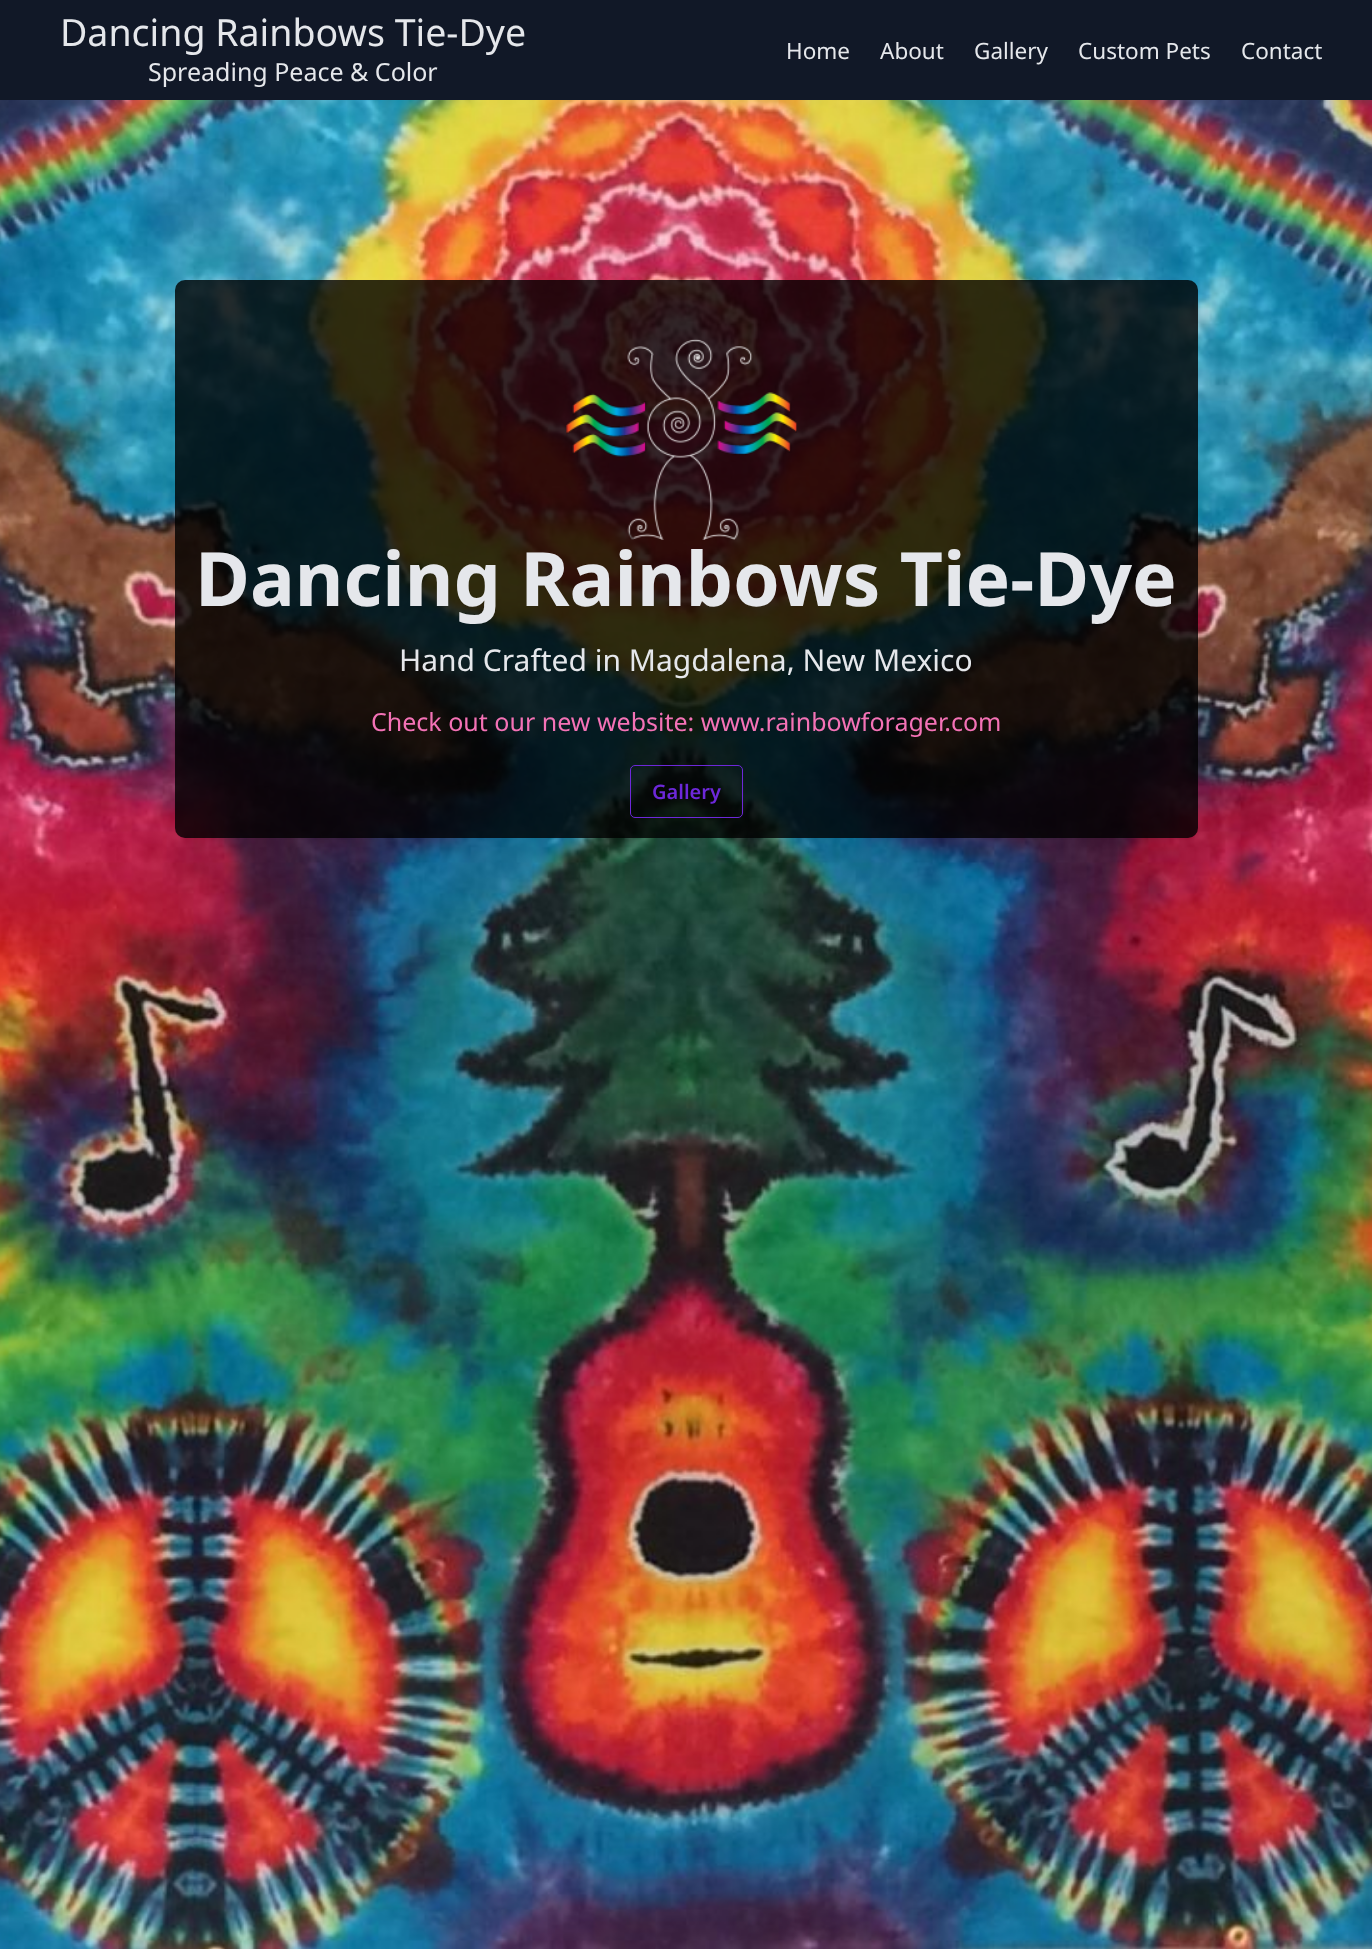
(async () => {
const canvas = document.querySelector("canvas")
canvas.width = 1372
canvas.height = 1949
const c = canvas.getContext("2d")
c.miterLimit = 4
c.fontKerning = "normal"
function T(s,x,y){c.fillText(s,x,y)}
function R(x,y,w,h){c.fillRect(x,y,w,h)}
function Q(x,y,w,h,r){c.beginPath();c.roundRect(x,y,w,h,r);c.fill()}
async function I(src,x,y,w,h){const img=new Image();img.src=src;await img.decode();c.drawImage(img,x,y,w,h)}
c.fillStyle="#111827"
R(0,0,1372,1949)
c.font="37.5px Noto Sans"
c.fillStyle="#e5e7eb"
T("Dancing Rainbows Tie-Dye",60,46)
c.font="25px Noto Sans"
T("Spreading Peace & Color",148,81)
c.font="22.5px Noto Sans"
T("Home",786,59)
T("About",880,59)
T("Gallery",974,59)
T("Custom Pets",1078,59)
T("Contact",1241,59)
await I("1.png",0,100,1372,1849)
c.fillStyle="#000000cc"
Q(175,280,1023,558,10)
await I("2.png",566,338,231,202)
c.font="bold 75px Noto Sans"
c.fillStyle="#e5e7eb"
T("Dancing Rainbows Tie-Dye",195,606)
c.font="30px Noto Sans"
T("Hand Crafted in Magdalena, New Mexico",399,671)
c.font="25px Noto Sans"
c.fillStyle="#f472b6"
T("Check out our new website: www.rainbowforager.com",371,731)
c.beginPath()
c.roundRect(630.5,765.5,112,52,4.5)
c.strokeStyle="#6d28d9"
c.stroke()
c.font="600 20px Noto Sans"
c.fillStyle="#6d28d9"
T("Gallery",652,799)
})()
